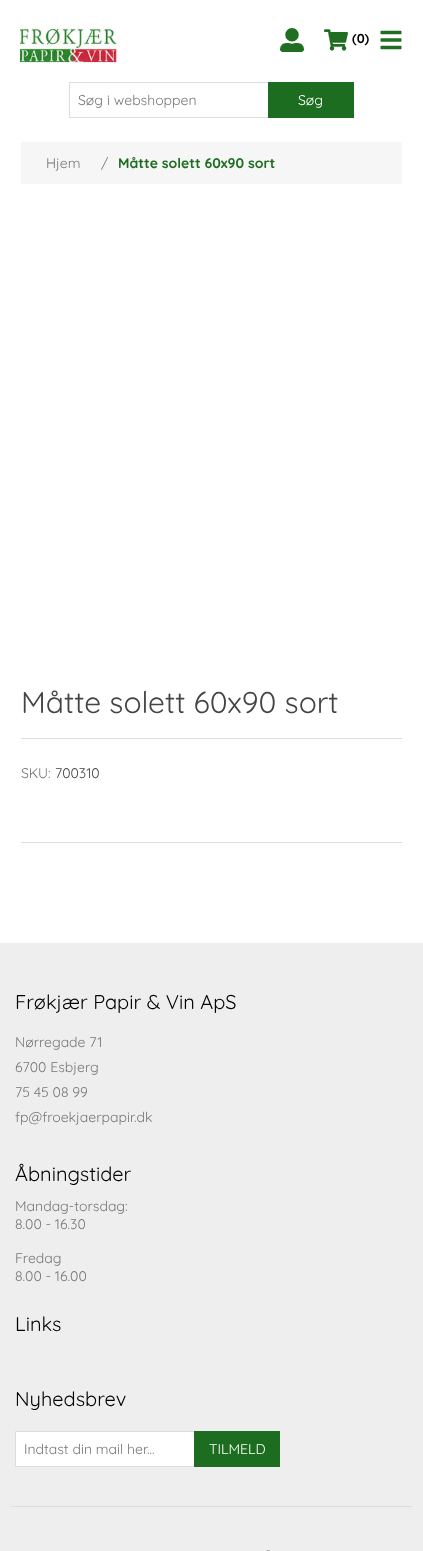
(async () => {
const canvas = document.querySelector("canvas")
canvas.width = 423
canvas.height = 1551
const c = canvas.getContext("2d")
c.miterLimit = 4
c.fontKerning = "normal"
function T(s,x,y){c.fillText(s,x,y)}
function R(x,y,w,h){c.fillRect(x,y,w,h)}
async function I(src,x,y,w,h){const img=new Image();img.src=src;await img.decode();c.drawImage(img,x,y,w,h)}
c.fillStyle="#fff"
R(0,0,423,1551)
await I("1.png",20,27,99,36)
await I("2.png",280,28,24,24)
await I("3.png",324,29,24,22)
c.font="bold 13px Quicksand"
c.fillStyle="#000"
T("(0)",352,43)
await I("4.png",380,30,22,20)
c.strokeStyle="#ddd"
c.strokeRect(69.5,82.5,199,35)
c.font="14px Quicksand"
c.fillStyle="#777"
T("Søg i webshoppen",78,105)
c.fillStyle="#1d6d20"
R(268,82,86,36)
c.fillStyle="#fff"
T("Søg",298,105)
c.fillStyle="#f6f6f6"
R(21,142,381,42)
c.fillStyle="#777"
T("Hjem",46,168)
T("/",101,168)
c.font="bold 14px Quicksand"
c.fillStyle="#1d6d20"
T("Måtte solett 60x90 sort",118,168)
c.fillStyle="#ddd"
R(21,842,381,1)
R(21,738,381,1)
c.font="30px Quicksand"
c.fillStyle="#444"
T("Måtte solett 60x90 sort",21,713)
c.font="14px Quicksand"
c.fillStyle="#777"
T("SKU:",21,778)
c.fillStyle="#444"
T("700310",55,778)
c.fillStyle="#eee"
R(0,943,423,608)
c.fillStyle="#ddd"
R(11,1506,401,1)
c.font="20px Quicksand"
c.fillStyle="#000"
T("Frøkjær Papir & Vin ApS",15,1009)
c.font="14px Quicksand"
c.fillStyle="#777"
T("Nørregade 71",15,1047)
T("6700 Esbjerg",15,1072)
T("75 45 08 99",15,1097)
T("fp@froekjaerpapir.dk",15,1122)
c.font="20px Quicksand"
c.fillStyle="#000"
T("Åbningstider",15,1181)
c.font="14px Quicksand"
c.fillStyle="#777"
T("Mandag-torsdag:",15,1211)
T("8.00 - 16.30",15,1229)
T("Fredag",15,1263)
T("8.00 - 16.00",15,1281)
c.font="20px Quicksand"
c.fillStyle="#000"
T("Links",15,1331)
T("Nyhedsbrev",15,1406)
c.fillStyle="#fff"
c.beginPath()
c.rect(15.5,1431.5,179,35)
c.fill()
c.stroke()
c.font="14px Quicksand"
c.fillStyle="#777"
T("Indtast din mail her...",24,1454)
c.fillStyle="#1d6d20"
R(194,1431,86,36)
c.fillStyle="#fff"
T("TILMELD",209,1454)
c.font="12px Quicksand"
c.fillStyle="#777"
T("-",266,1554)
})()
